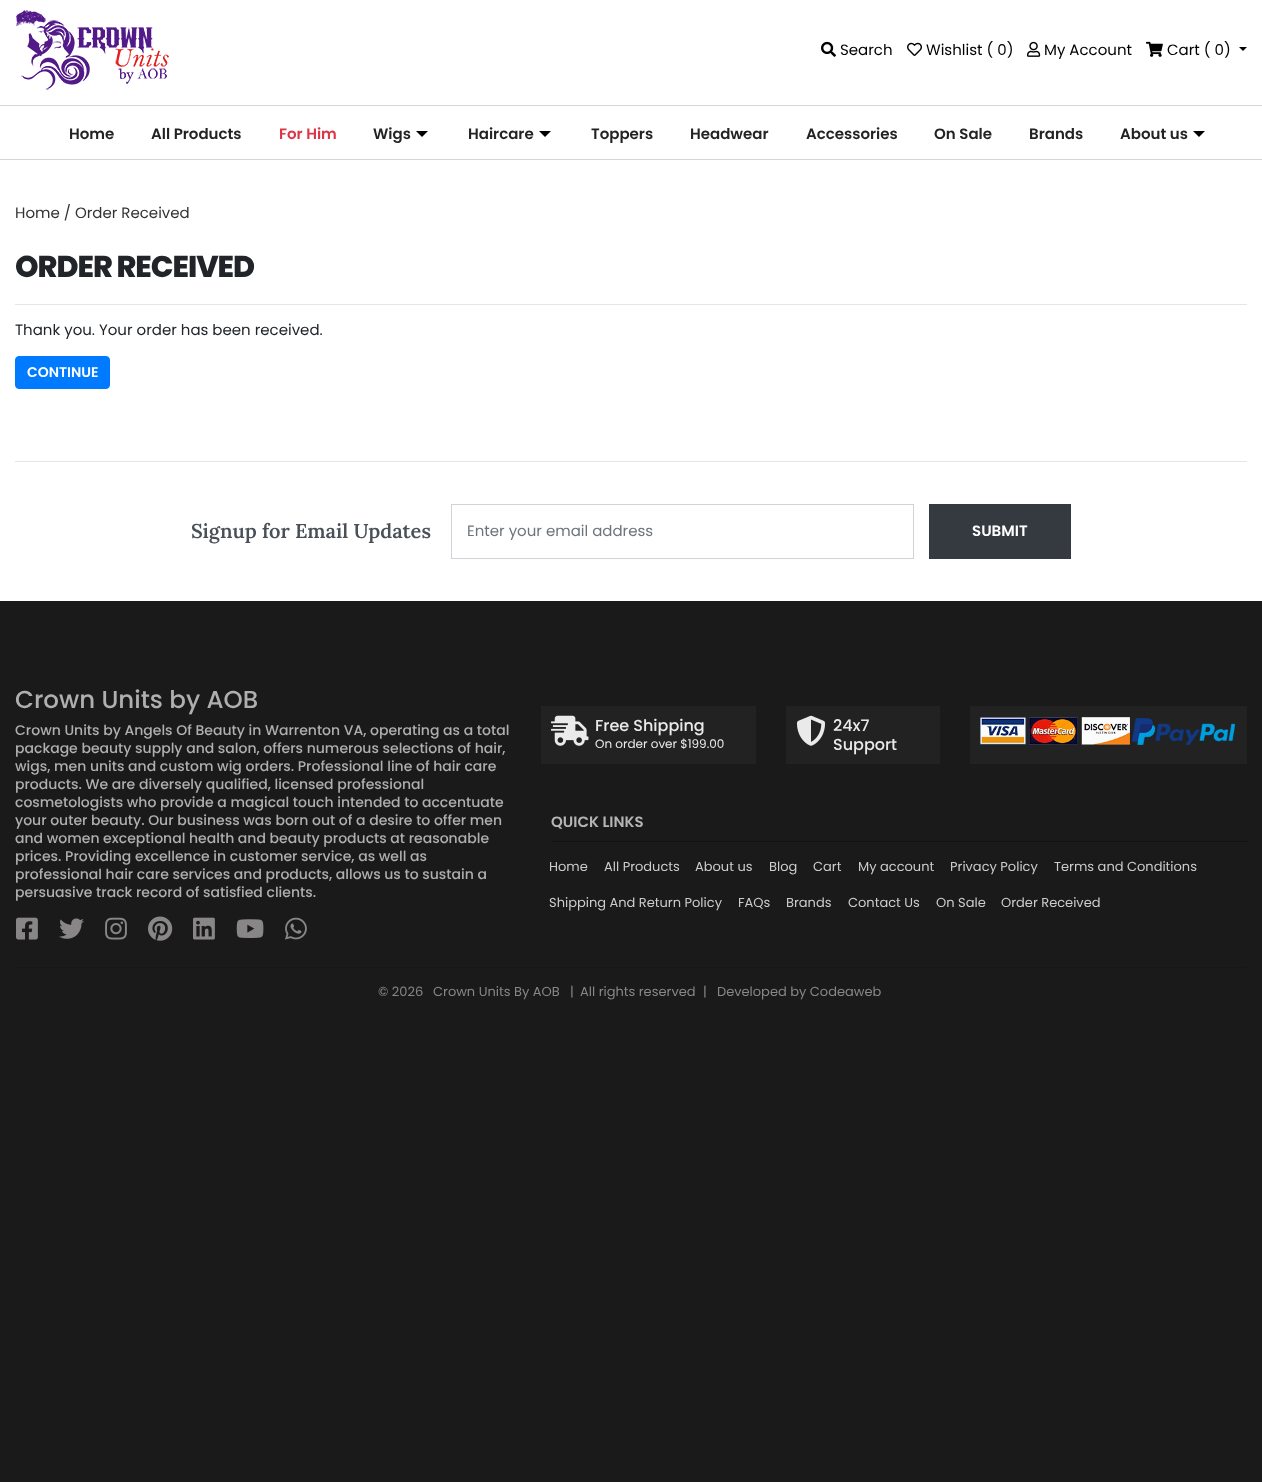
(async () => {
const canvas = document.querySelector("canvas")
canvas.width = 1262
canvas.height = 1482
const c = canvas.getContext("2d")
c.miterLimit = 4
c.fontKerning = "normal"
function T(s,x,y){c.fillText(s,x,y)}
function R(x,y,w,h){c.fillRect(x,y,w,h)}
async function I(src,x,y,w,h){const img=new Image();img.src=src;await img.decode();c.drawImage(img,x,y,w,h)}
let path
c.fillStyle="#1b1a1a"
R(0,0,1262,1482)
c.fillStyle="#fff"
R(0,0,1262,601)
c.fillStyle="#d6d6d6"
R(0,159,1262,1)
await I("1.png",16,10,153,80)
await I("2.png",821,41,15,16)
c.font="15px Poppins"
c.fillStyle="#000"
T("Search",840,55)
await I("3.png",907,42,15,14)
T("Wishlist ( 0)",926,55)
await I("4.png",1027,41,14,16)
T("My Account",1044,55)
await I("5.png",1146,41,17,16)
T("Cart ( 0)",1167,55)
path = new Path2D("M1239 47h8l-4 4z")
c.fill(path)
c.fillStyle="#d6d6d6"
R(0,105,1262,1)
c.font="600 15px Poppins"
c.fillStyle="#232323"
T("Home",69,139)
T("All Products",151,139)
c.fillStyle="#dc3545"
T("For Him",279,139)
c.fillStyle="#232323"
T("Wigs",373,139)
c.fillStyle="#000"
path = new Path2D("M416 131h12l-6 6z")
c.fill(path)
c.fillStyle="#232323"
T("Haircare",468,139)
c.fillStyle="#000"
path = new Path2D("M539 131h12l-6 6z")
c.fill(path)
c.fillStyle="#232323"
T("Toppers",591,139)
T("Headwear",690,139)
T("Accessories",806,139)
T("On Sale",934,139)
T("Brands",1029,139)
T("About us",1120,139)
c.fillStyle="#000"
path = new Path2D("M1193 131h12l-6 6z")
c.fill(path)
c.font="15px Poppins"
c.fillStyle="#333"
T("Home / Order Received",15,218)
c.letterSpacing="-1px"
c.font="800 30px Poppins"
c.fillStyle="#212529"
T("ORDER RECEIVED",15,277)
c.fillStyle="#e6e6e6"
R(15,304,1232,1)
c.letterSpacing="0px"
c.font="15px Poppins"
c.fillStyle="#212529"
T("Thank you. Your order has been received.",15,335)
c.fillStyle="#007bff"
c.beginPath()
c.roundRect(15.5,356.5,94,32,3.5)
c.fill()
c.strokeStyle="#007bff"
c.stroke()
c.font="600 14px Poppins"
c.fillStyle="#fff"
T("CONTINUE",27,377)
c.fillStyle="#e6e6e6"
R(15,461,1232,1)
c.font="600 20px Lora"
c.fillStyle="#495057"
T("Signup for Email Updates",191,538)
c.strokeStyle="#ced4da"
c.strokeRect(451.5,504.5,462,54)
c.font="15px Poppins"
c.fillStyle="#6c757d"
T("Enter your email address",467,536)
c.fillStyle="#343a40"
R(929,504,142,55)
c.font="600 15px Poppins"
c.fillStyle="#fff"
T("SUBMIT",972,536)
c.font="500 24.5px Poppins"
c.fillStyle="#afafaf"
T("Crown Units by AOB",15,708)
c.font="500 14px Poppins"
T("Crown Units by Angels Of Beauty in Warrenton VA, operating as a total",15,735)
T("package beauty supply and salon, offers numerous selections of hair,",15,753)
T("wigs, men units and custom wig orders. Professional line of hair care",15,771)
T("products. We are diversely qualified, licensed professional",15,789)
T("cosmetologists who provide a magical touch intended to accentuate",15,807)
T("your outer beauty. Our business was born out of a desire to offer men",15,825)
T("and women exceptional health and beauty products at reasonable",15,843)
T("prices. Providing excellence in customer service, as well as",15,861)
T("professional hair care services and products, allows us to sustain a",15,879)
T("persuasive track record of satisfied clients.",15,897)
await I("6.png",16,917,22,23)
await I("7.png",59,918,25,21)
await I("8.png",105,917,22,23)
await I("9.png",148,916,25,25)
await I("10.png",193,917,22,23)
await I("11.png",236,919,28,19)
await I("12.png",285,917,22,23)
c.fillStyle="#222"
R(541,706,215,58)
await I("13.png",551,715,38,31)
c.font="500 16px Poppins"
c.fillStyle="#eaeaea"
T("Free Shipping",595,731)
c.font="12px Poppins"
T("On order over $199.00",595,748)
c.fillStyle="#222"
R(786,706,154,58)
await I("14.png",796,715,30,31)
c.font="500 16px Poppins"
c.fillStyle="#eaeaea"
T("24x7",833,731)
T("Support",833,750)
c.fillStyle="#222"
R(970,706,277,58)
await I("15.png",980,717,255,28)
c.fillStyle="#131212"
R(551,841,696,1)
c.font="600 15px Poppins"
c.fillStyle="#b5b5b5"
T("QUICK LINKS",551,827)
c.font="13px Poppins"
c.fillStyle="#ccc"
T("Home",549,871)
T("All Products",604,871)
T("About us",695,871)
T("Blog",769,871)
T("Cart",813,871)
T("My account",858,871)
T("Privacy Policy",950,871)
T("Terms and Conditions",1054,871)
T("Shipping And Return Policy",549,907)
T("FAQs",738,907)
T("Brands",786,907)
T("Contact Us",848,907)
T("On Sale",936,907)
T("Order Received",1001,907)
c.fillStyle="#181717"
R(15,967,1232,1)
c.fillStyle="#888687"
T("© 2026",378,996)
T("Crown Units By AOB",433,996)
T("|",570,996)
T("All rights reserved",580,996)
T("|",703,996)
T("Developed by Codeaweb",717,996)
})()
